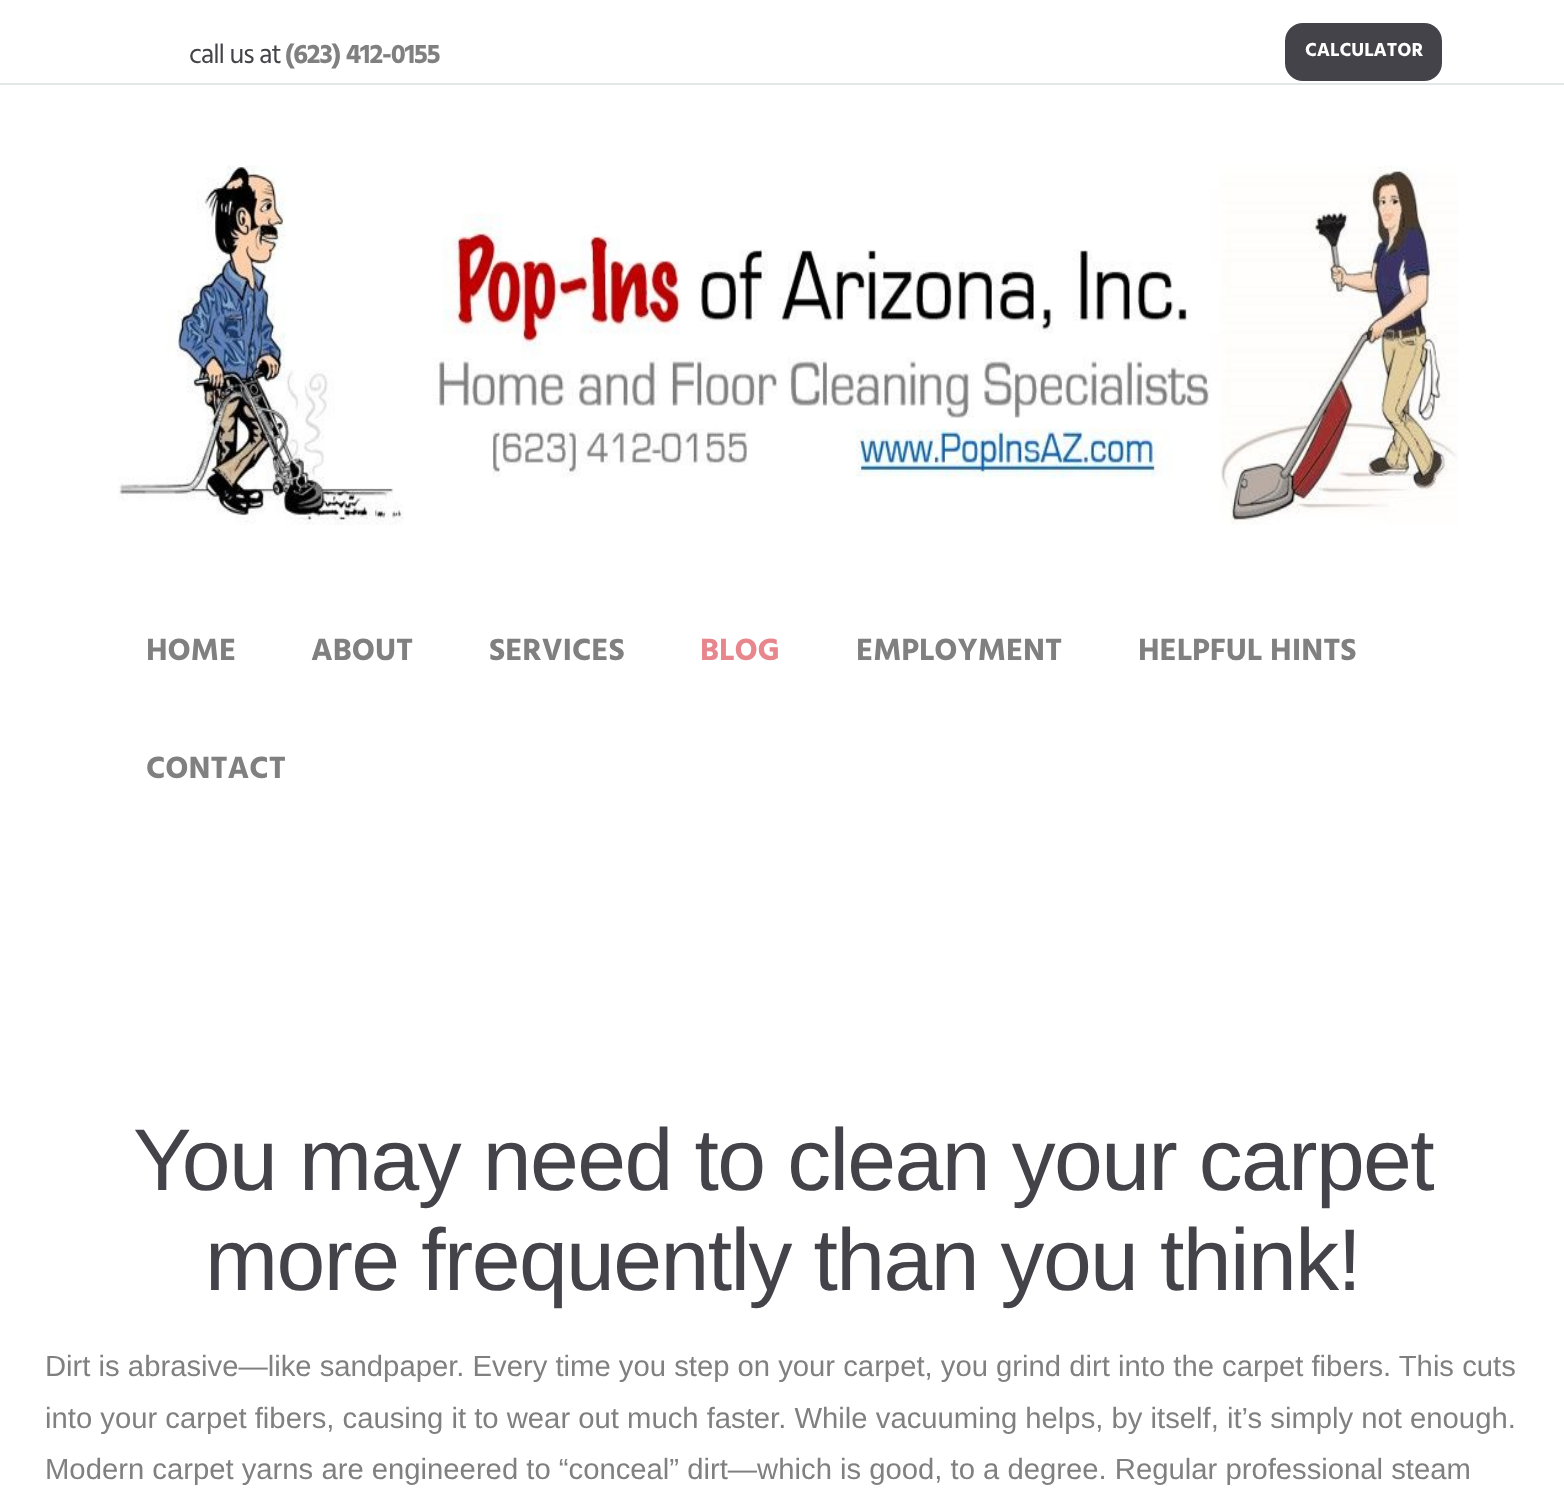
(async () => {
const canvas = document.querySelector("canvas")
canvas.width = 1564
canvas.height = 1501
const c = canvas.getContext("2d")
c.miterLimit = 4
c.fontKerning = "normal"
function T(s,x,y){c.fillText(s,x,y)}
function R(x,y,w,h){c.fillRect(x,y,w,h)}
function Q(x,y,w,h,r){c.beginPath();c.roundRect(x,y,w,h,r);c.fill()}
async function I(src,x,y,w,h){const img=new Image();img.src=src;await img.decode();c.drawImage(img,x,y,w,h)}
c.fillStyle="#fff"
R(0,0,1564,1501)
c.fillStyle="#e4e7e8"
R(0,83,1564,2)
c.letterSpacing="-1.1px"
c.font="27.5px Hind"
c.fillStyle="#444349"
T("call us at",189,63)
c.font="bold 27.5px Hind"
c.fillStyle="#808080"
T("(623) 412-0155",285,63)
c.fillStyle="#444349"
Q(1285,23,157,58,18)
c.letterSpacing="0px"
c.font="bold 19.25px Hind"
c.fillStyle="#fff"
T("CALCULATOR",1305,56)
await I("1.png",118,165,1340,360)
c.font="bold 31.5px Hind"
c.fillStyle="#808080"
T("HOME",146,660)
T("ABOUT",311,660)
T("SERVICES",489,660)
c.fillStyle="#e7878d"
T("BLOG",700,660)
c.fillStyle="#808080"
T("EMPLOYMENT",856,660)
T("HELPFUL HINTS",1138,660)
T("CONTACT",146,778)
c.letterSpacing="-1.6px"
c.font="87.75px Liberation Sans"
c.fillStyle="#444349"
T("You may need to clean your carpet",133,1190)
T("more frequently than you think!",205,1290)
c.letterSpacing="0px"
c.font="29.25px Liberation Sans"
c.fillStyle="#808080"
T("Dirt is abrasive—like sandpaper. Every time you step on your carpet, you grind dirt into the carpet fibers. This cuts",45,1376)
T("into your carpet fibers, causing it to wear out much faster. While vacuuming helps, by itself, it’s simply not enough.",45,1428)
T("Modern carpet yarns are engineered to “conceal” dirt—which is good, to a degree. Regular professional steam",45,1479)
})()
